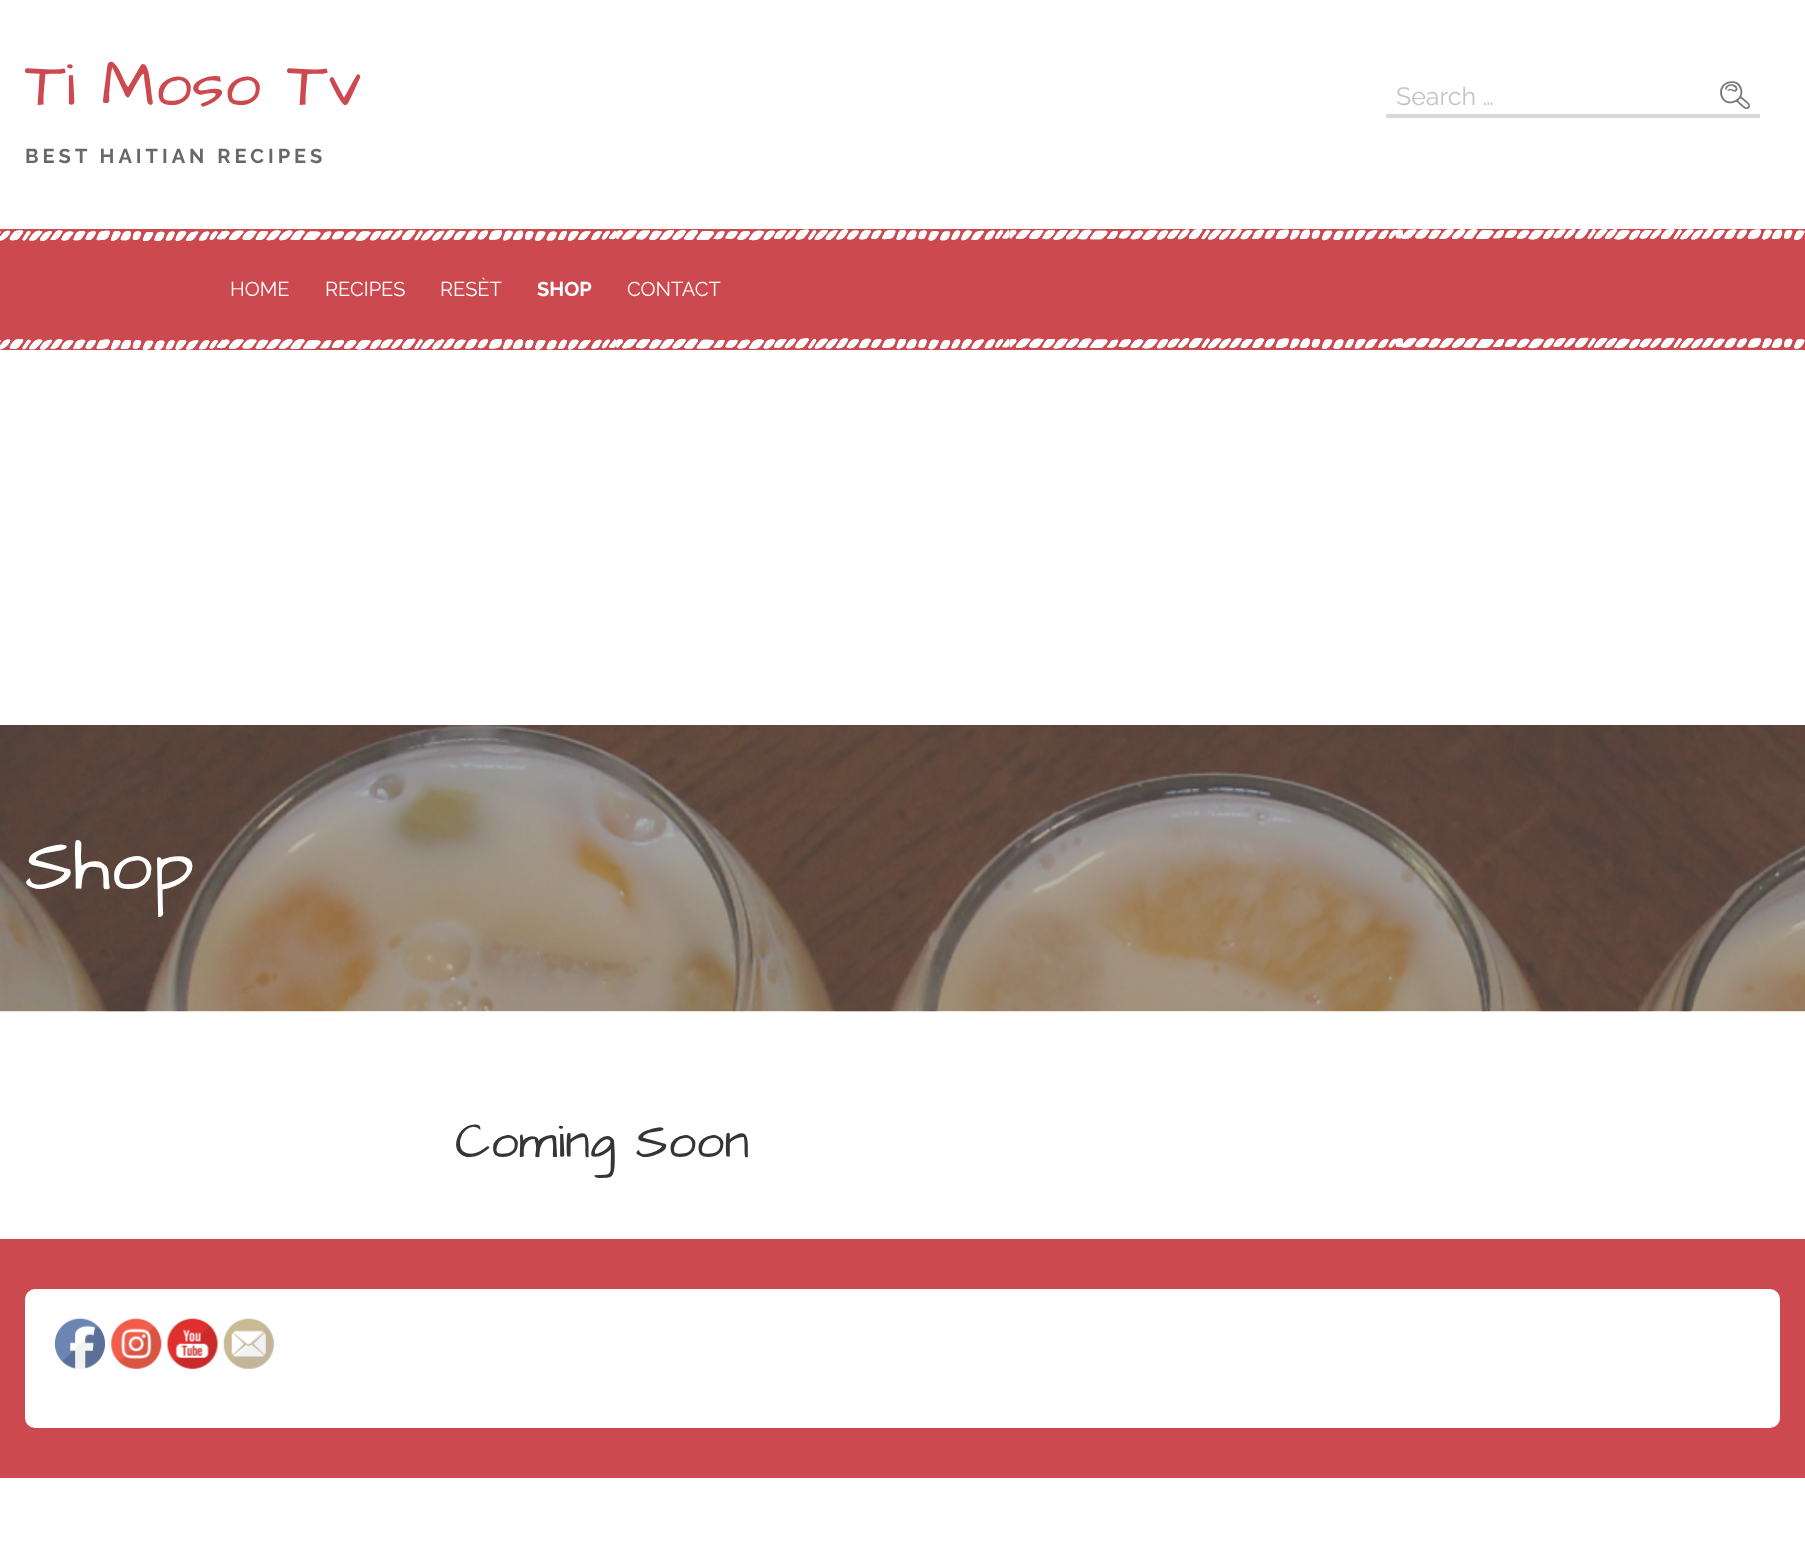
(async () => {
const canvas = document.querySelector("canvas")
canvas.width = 1805
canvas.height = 1548
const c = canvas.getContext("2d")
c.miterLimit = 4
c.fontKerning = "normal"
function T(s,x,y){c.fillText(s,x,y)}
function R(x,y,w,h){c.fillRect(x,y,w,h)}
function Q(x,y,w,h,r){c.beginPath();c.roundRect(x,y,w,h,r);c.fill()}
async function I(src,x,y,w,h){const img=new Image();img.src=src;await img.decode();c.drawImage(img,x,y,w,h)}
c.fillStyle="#fff"
R(0,0,1805,1548)
c.font="65px Architects Daughter"
c.fillStyle="#cc494f"
T("Ti Moso Tv",25,105)
c.letterSpacing="4px"
c.font="bold 20px Raleway"
c.fillStyle="#686868"
T("BEST HAITIAN RECIPES",25,163)
c.fillStyle="#d9d9d9"
R(1386,114,374,4)
c.letterSpacing="0px"
c.font="25px Raleway"
c.fillStyle="#c4c4c4"
T("Search …",1396,105)
await I("1.png",1720,81,30,28)
c.fillStyle="#cc494f"
R(0,229,1805,121)
await I("2.png",0,229,1805,13)
c.font="20px Raleway"
c.fillStyle="#fff"
T("HOME",230,296)
T("RECIPES",325,296)
T("RESÈT",440,296)
c.font="bold 20px Raleway"
T("SHOP",537,296)
c.font="20px Raleway"
T("CONTACT",627,296)
await I("3.png",0,337,1805,13)
await I("4.png",0,725,1805,287)
c.font="75px Architects Daughter"
T("Shop",25,889)
c.font="50px Architects Daughter"
c.fillStyle="#353535"
T("Coming Soon",455,1157)
c.fillStyle="#cc494f"
R(0,1239,1805,239)
c.fillStyle="#fff"
Q(25,1289,1755,139,10)
await I("5.png",55,1318,50,51)
await I("6.png",111,1318,51,51)
await I("7.png",167,1318,51,51)
await I("8.png",223,1318,51,51)
})()
